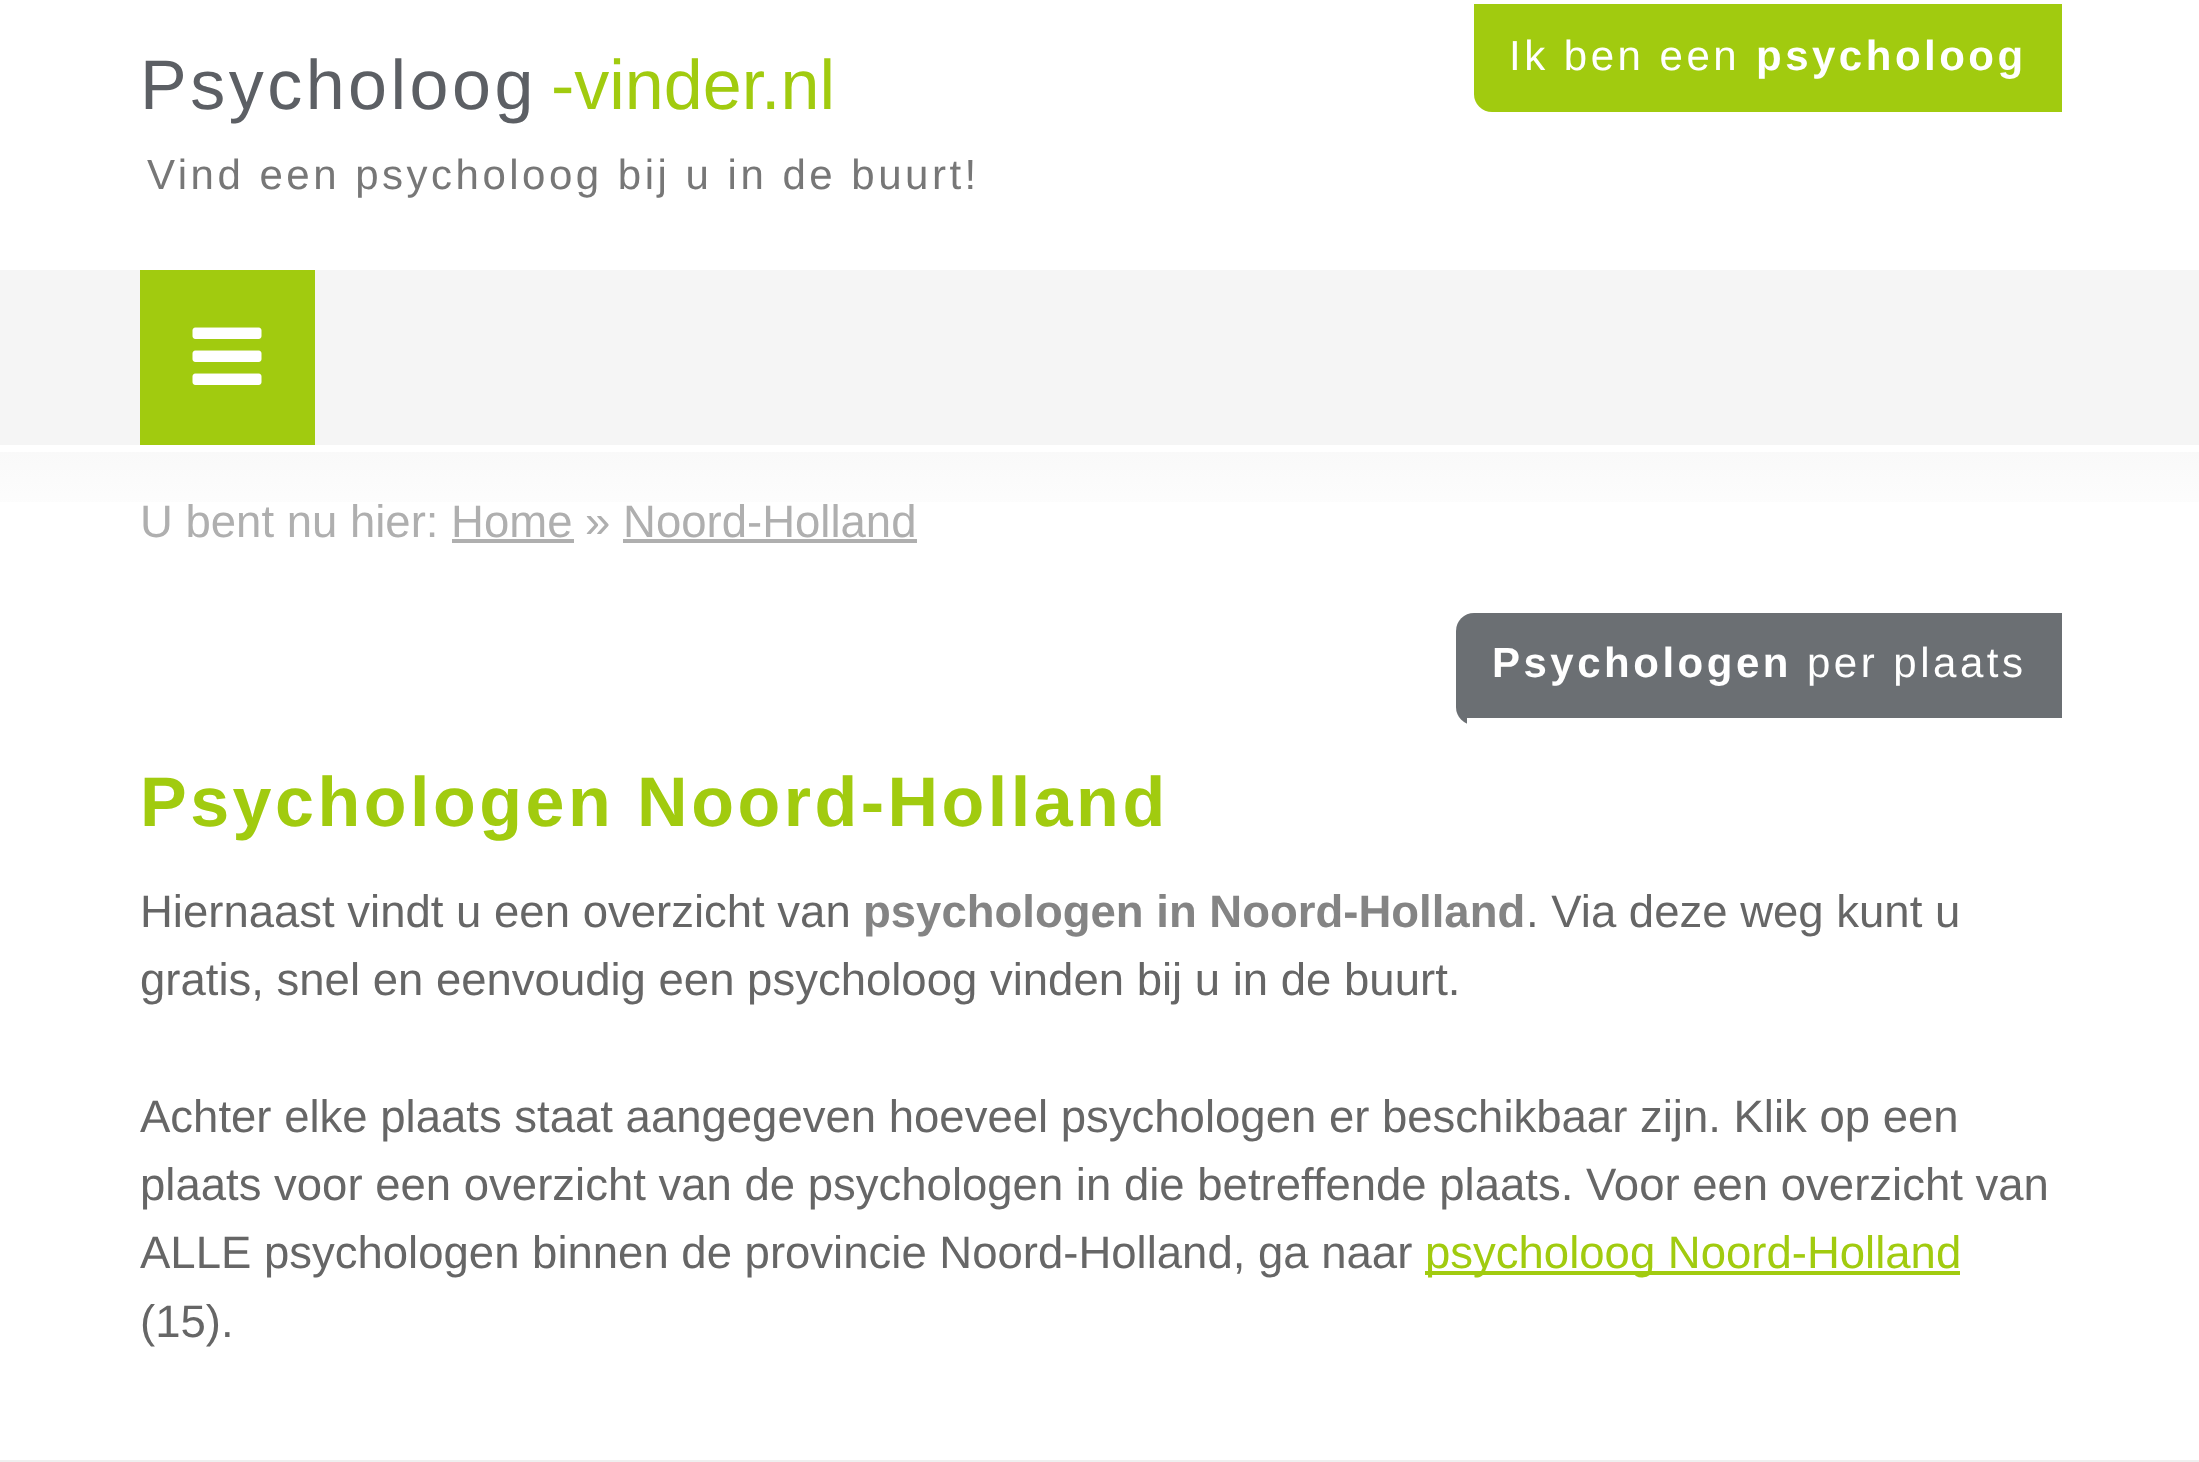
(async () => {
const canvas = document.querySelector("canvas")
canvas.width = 2199
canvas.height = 1462
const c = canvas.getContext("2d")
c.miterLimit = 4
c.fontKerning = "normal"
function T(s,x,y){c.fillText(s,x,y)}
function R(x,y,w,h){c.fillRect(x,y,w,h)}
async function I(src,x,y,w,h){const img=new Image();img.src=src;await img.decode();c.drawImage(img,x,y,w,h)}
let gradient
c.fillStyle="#fff"
R(0,0,2199,1462)
c.letterSpacing="3.5px"
c.font="70px Liberation Sans"
c.fillStyle="#5c5f64"
T("Psycholoog",140,109)
c.letterSpacing="0px"
c.fillStyle="#a1cb0f"
T("-vinder.nl",551,109)
c.letterSpacing="3.5px"
c.font="42px Liberation Sans"
c.fillStyle="#777"
T("Vind een psycholoog bij u in de buurt!",147,189)
c.fillStyle="#a1cb0f"
c.beginPath()
c.roundRect(1474,0,588,112,[0,0,0,18])
c.fill()
c.fillStyle="#fff"
R(1474,0,588,4)
T("Ik ben een",1509,70)
c.font="bold 42px Liberation Sans"
T("psycholoog",1756,70)
c.fillStyle="#f5f5f5"
R(0,270,2199,175)
c.fillStyle="#a1cb0f"
R(140,270,175,175)
await I("1.png",192,327,70,58)
gradient = c.createLinearGradient(1101,451,1101,595)
gradient.addColorStop(0,"#f9f9f9")
gradient.addColorStop(.61,"#fff")
c.fillStyle = gradient
R(0,452,2199,50)
c.letterSpacing="0px"
c.font="45.5px Liberation Sans"
c.fillStyle="#afafaf"
T("U bent nu hier: Home » Noord-Holland",140,537)
R(452,539,122,4)
R(623,539,294,4)
c.fillStyle="#6b6f73"
c.beginPath()
c.roundRect(1456,613,606,112,[18,0,0,18])
c.fill()
c.fillStyle="#fff"
R(1467,718,595,7)
c.letterSpacing="3.5px"
c.font="bold 42px Liberation Sans"
T("Psychologen",1492,677)
c.font="42px Liberation Sans"
T("per plaats",1807,677)
c.font="bold 70px Liberation Sans"
c.fillStyle="#a1cb0f"
T("Psychologen Noord-Holland",140,826)
c.letterSpacing="0px"
c.font="45.5px Liberation Sans"
c.fillStyle="#666"
T("Hiernaast vindt u een overzicht van",140,927)
c.font="bold 45.5px Liberation Sans"
c.fillStyle="#848484"
T("psychologen in Noord-Holland",863,927)
c.font="45.5px Liberation Sans"
c.fillStyle="#666"
T(". Via deze weg kunt u",1526,927)
T("gratis, snel en eenvoudig een psycholoog vinden bij u in de buurt.",140,995)
T("Achter elke plaats staat aangegeven hoeveel psychologen er beschikbaar zijn. Klik op een",140,1132)
T("plaats voor een overzicht van de psychologen in die betreffende plaats. Voor een overzicht van",140,1200)
T("ALLE psychologen binnen de provincie Noord-Holland, ga naar",140,1268)
c.fillStyle="#a1cb0f"
R(1425,1271,535,4)
T("psycholoog Noord-Holland",1425,1268)
c.fillStyle="#666"
T("(15).",140,1337)
c.fillStyle="#efefef"
R(0,1460,2199,2)
})()
